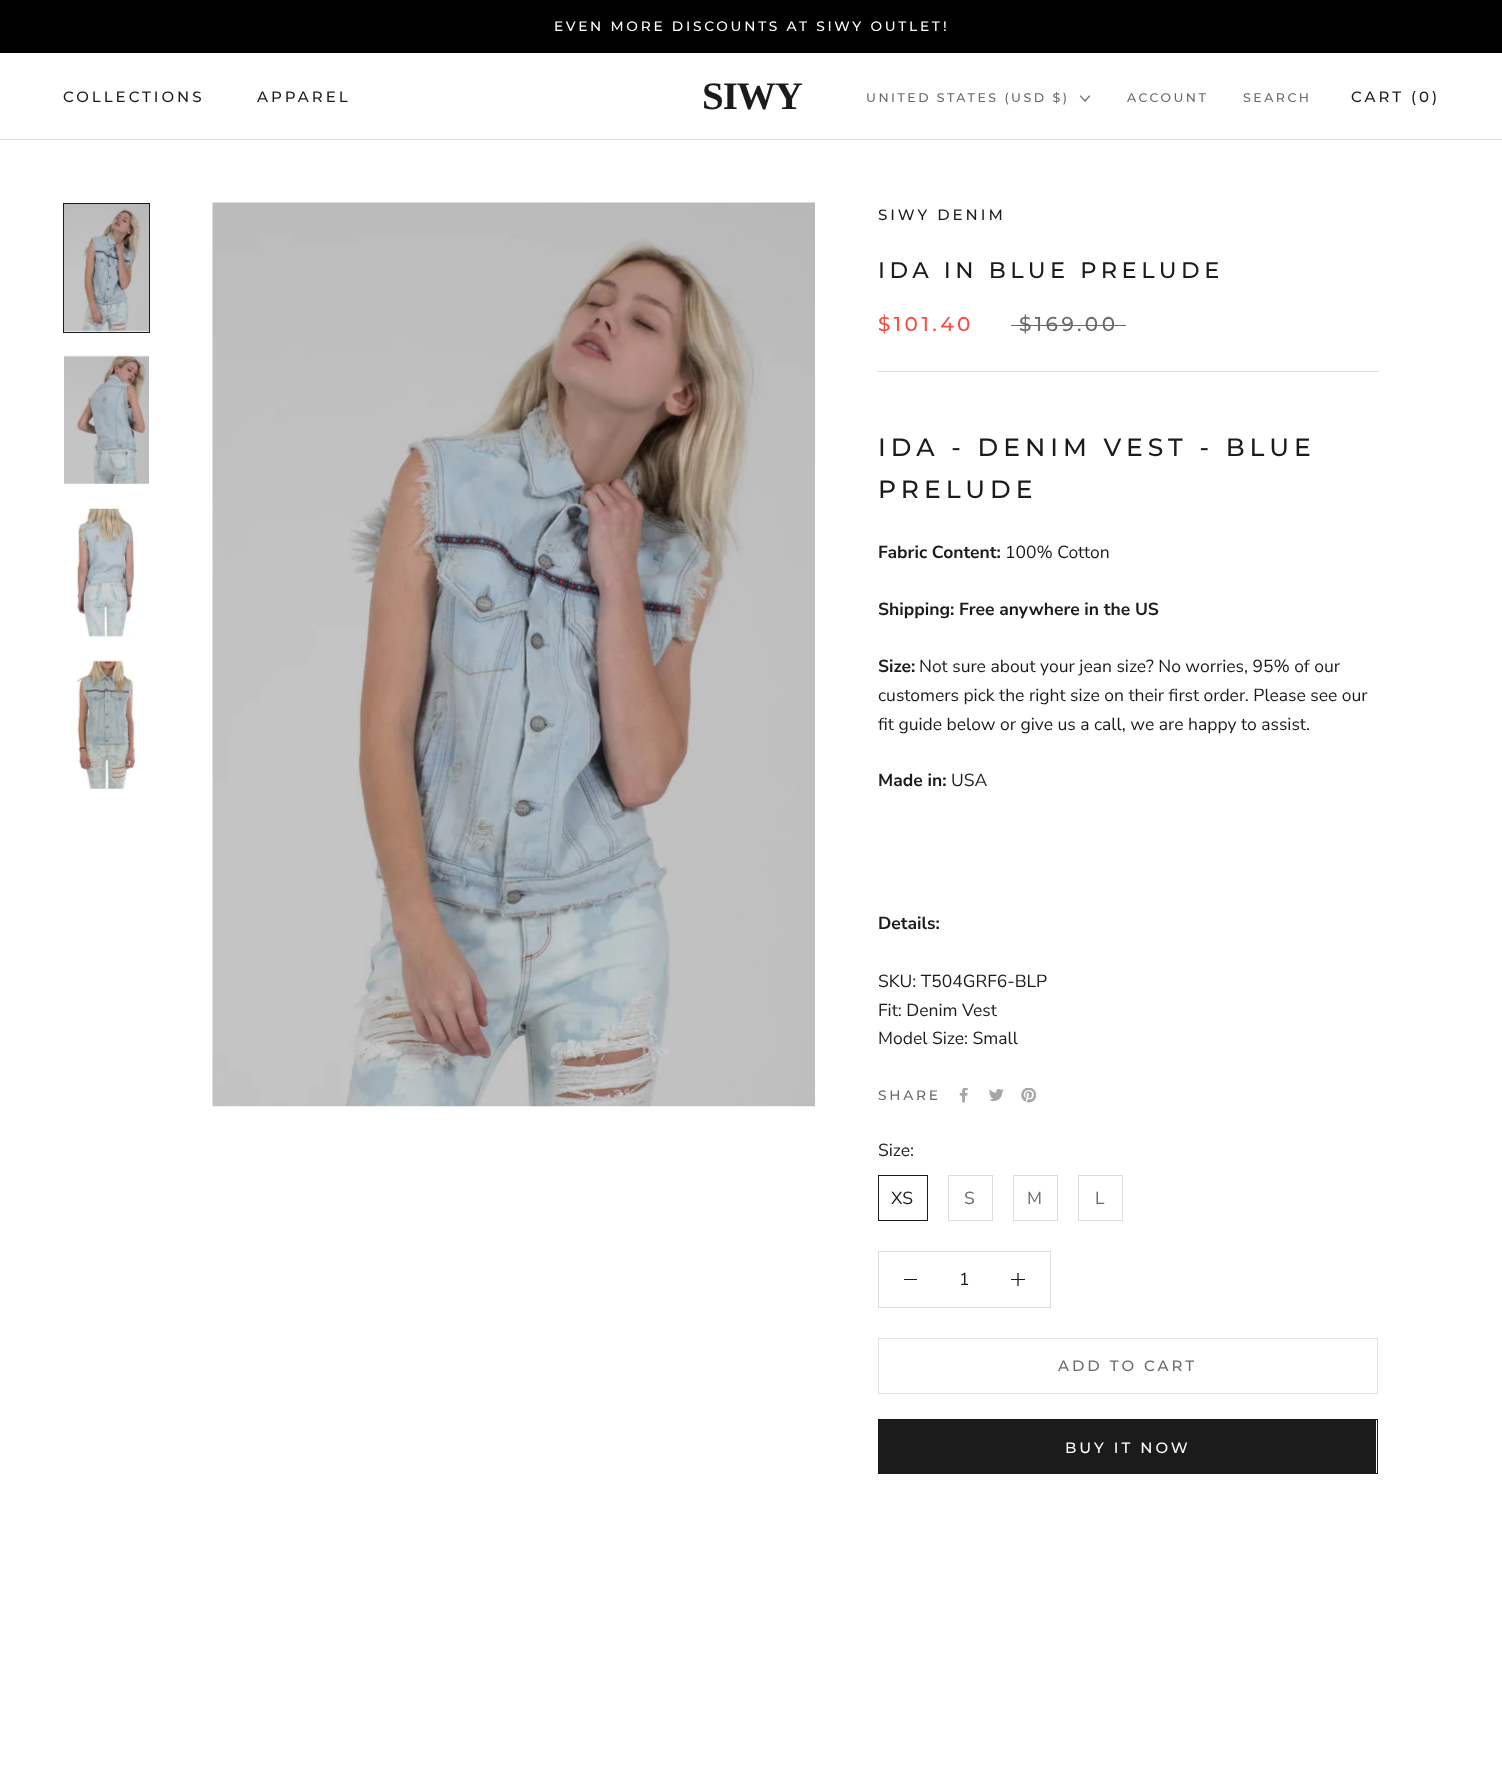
(async () => {
const canvas = document.querySelector("canvas")
canvas.width = 1502
canvas.height = 1789
const c = canvas.getContext("2d")
c.miterLimit = 4
c.fontKerning = "normal"
function T(s,x,y){c.fillText(s,x,y)}
function R(x,y,w,h){c.fillRect(x,y,w,h)}
async function I(src,x,y,w,h){const img=new Image();img.src=src;await img.decode();c.drawImage(img,x,y,w,h)}
let path
c.fillStyle="#fff"
R(0,0,1502,1789)
c.fillStyle="#000"
R(0,0,1502,53)
c.letterSpacing="2.75px"
c.font="500 13.75px Montserrat"
c.fillStyle="#fff"
T("EVEN MORE DISCOUNTS AT SIWY OUTLET!",554,31)
c.fillStyle="#ddd"
R(0,139,1502,1)
c.letterSpacing="3px"
c.font="500 15px Montserrat"
c.fillStyle="#1c1b1b"
T("COLLECTIONS",63,102)
T("APPAREL",257,102)
c.letterSpacing="-1px"
c.font="bold 39px Liberation Serif"
T("SIWY",702,109)
c.letterSpacing="2.5px"
c.font="500 12.5px Montserrat"
c.fillStyle="#6a6a6a"
T("UNITED STATES (USD $)",866,102)
path = new Path2D("M1089.5 96l-4.5 5l-4.5-5")
c.strokeStyle="#6a6a6a"
c.lineWidth=1.2
c.lineCap="square"
c.stroke(path)
T("ACCOUNT",1127,102)
T("SEARCH",1243,102)
c.letterSpacing="3px"
c.font="500 15px Montserrat"
c.fillStyle="#1c1b1b"
T("CART (0)",1351,102)
c.strokeStyle="#1c1b1b"
c.lineWidth=1
c.strokeRect(63.5,203.5,86,129)
await I("1.png",64,204,85,128)
await I("2.png",64,355,85,129)
await I("3.png",77,508,57,129)
await I("4.png",76,660,60,129)
await I("5.png",212,202,603,905)
c.fillStyle="#ddd"
R(878,371,500,1)
c.fillStyle="#1c1b1b"
T("SIWY DENIM",878,220)
c.letterSpacing="4.5px"
c.font="500 22.5px Montserrat"
T("IDA IN BLUE PRELUDE",878,278)
c.letterSpacing="3.5px"
c.font="500 20px Montserrat"
c.fillStyle="#f94c43"
T("$101.40",878,331)
c.fillStyle="#6a6a6a"
T("$169.00",1019,331)
R(1011,325,115,1)
c.letterSpacing="5px"
c.font="500 25px Montserrat"
c.fillStyle="#1c1b1b"
T("IDA - DENIM VEST - BLUE",878,456)
T("PRELUDE",878,498)
c.letterSpacing="0px"
c.font="bold 17.5px Nunito Sans"
T("Fabric Content:",878,558)
c.font="17.5px Nunito Sans"
T("100% Cotton",1005,558)
c.font="bold 17.5px Nunito Sans"
T("Shipping: Free anywhere in the US",878,615)
T("Size:",878,672)
c.font="17.5px Nunito Sans"
T("Not sure about your jean size? No worries, 95% of our",919,672)
T("customers pick the right size on their first order. Please see our",878,701)
T("fit guide below or give us a call, we are happy to assist.",878,730)
c.font="bold 17.5px Nunito Sans"
T("Made in:",878,786)
c.font="17.5px Nunito Sans"
T("USA",951,786)
c.font="bold 17.5px Nunito Sans"
T("Details:",878,929)
c.font="17.5px Nunito Sans"
T("SKU: T504GRF6-BLP",878,987)
T("Fit: Denim Vest",878,1016)
T("Model Size: Small",878,1044)
c.letterSpacing="2.75px"
c.font="500 13.75px Montserrat"
c.fillStyle="#6a6a6a"
T("SHARE",878,1100)
await I("6.png",959,1088,9,15)
await I("7.png",989,1089,15,13)
await I("8.png",1021,1088,15,15)
c.letterSpacing="0px"
c.font="17.5px Nunito Sans"
c.fillStyle="#1c1b1b"
T("Size:",878,1156)
c.strokeRect(878.5,1175.5,49,45)
T("XS",891,1204)
c.strokeStyle="#ddd"
c.strokeRect(948.5,1175.5,44,45)
c.fillStyle="#6a6a6a"
T("S",964,1204)
c.strokeRect(1013.5,1175.5,44,45)
T("M",1027,1204)
c.strokeRect(1078.5,1175.5,44,45)
T("L",1095,1204)
c.strokeRect(878.5,1251.5,172,56)
c.fillStyle="#1c1b1b"
R(904,1279,13,1)
T("1",959,1285)
c.save()
c.beginPath()
c.rect(1011,1273,14,13)
c.clip()
path = new Path2D("M1018 1273.5v12")
c.strokeStyle="#1c1b1b"
c.lineWidth=1.3
c.stroke(path)
c.restore()
R(1011,1279,14,1)
c.strokeStyle="#e1e1e1"
c.strokeRect(878.5,1338.5,499,55)
c.letterSpacing="3px"
c.font="500 15px Montserrat"
c.fillStyle="#6a6a6a"
T("ADD TO CART",1058,1371)
c.strokeStyle="#1c1b1b"
c.strokeRect(878.5,1419.5,499,54)
c.fillStyle="#1c1b1b"
R(879,1420,497,53)
c.fillStyle="#fff"
T("BUY IT NOW",1065,1453)
})()
